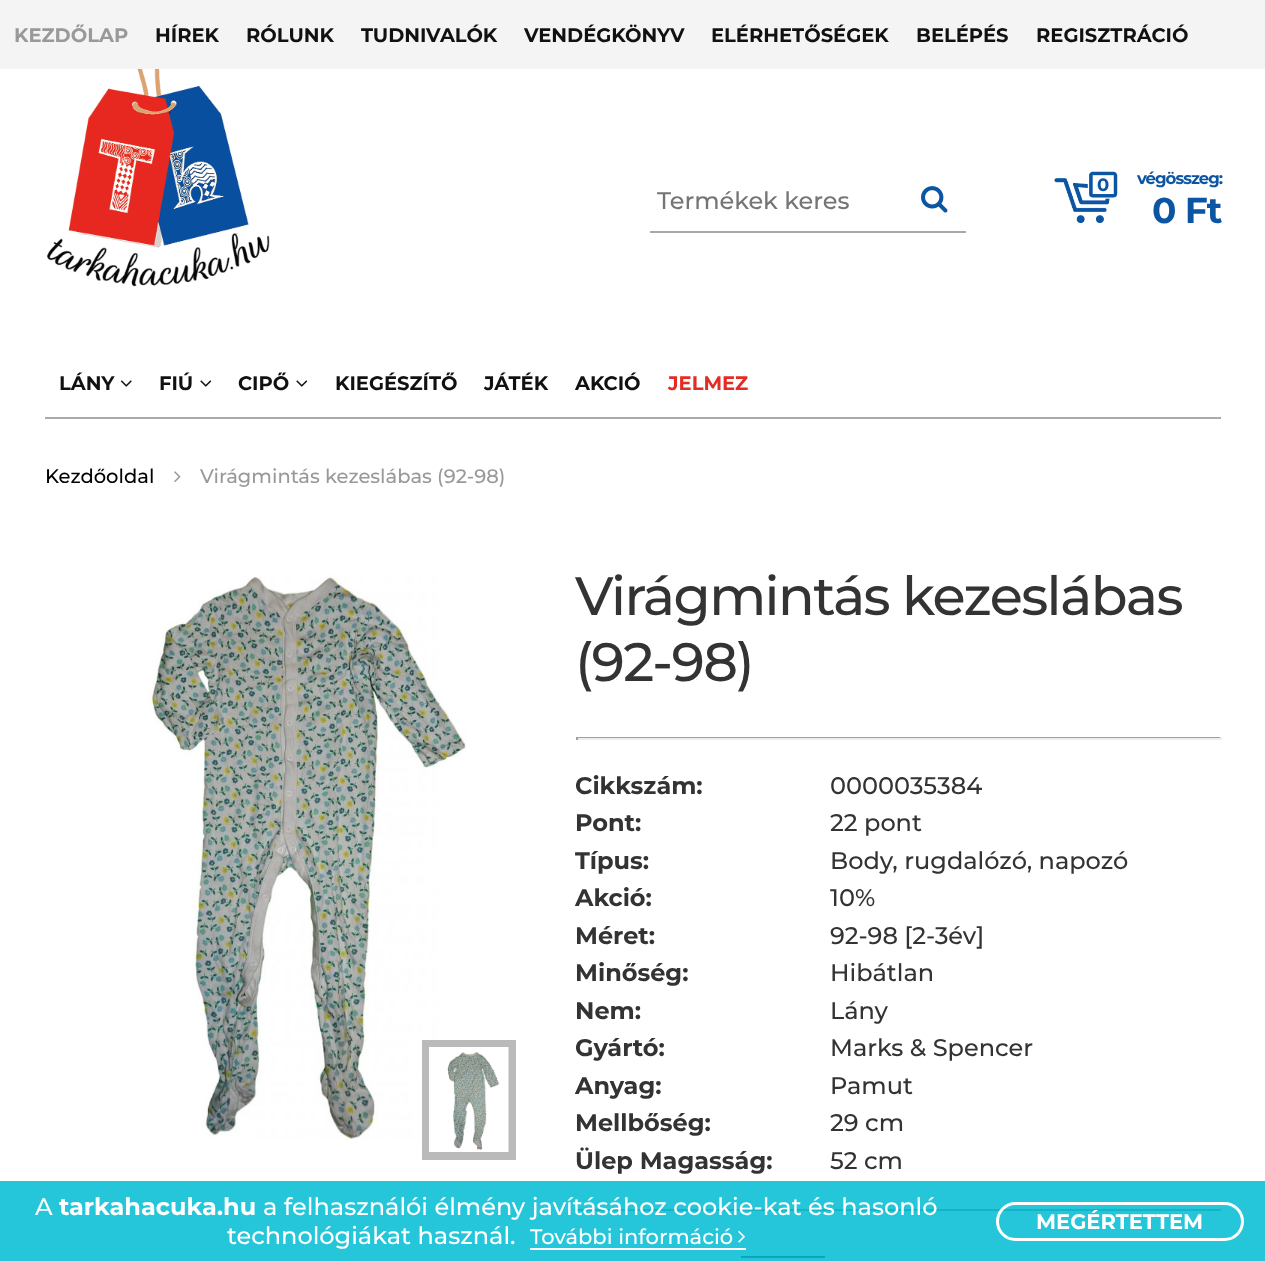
(async () => {
const canvas = document.querySelector("canvas")
canvas.width = 1265
canvas.height = 1261
const c = canvas.getContext("2d")
c.miterLimit = 4
c.fontKerning = "normal"
function T(s,x,y){c.fillText(s,x,y)}
function R(x,y,w,h){c.fillRect(x,y,w,h)}
async function I(src,x,y,w,h){const img=new Image();img.src=src;await img.decode();c.drawImage(img,x,y,w,h)}
c.fillStyle="#f4f4f4"
R(0,0,1265,1261)
c.font="bold 19.5px Montserrat"
c.fillStyle="#999"
T("KEZDŐLAP",14,42)
c.fillStyle="#111"
T("HÍREK",155,42)
T("RÓLUNK",246,42)
T("TUDNIVALÓK",361,42)
T("VENDÉGKÖNYV",524,42)
T("ELÉRHETŐSÉGEK",711,42)
T("BELÉPÉS",916,42)
T("REGISZTRÁCIÓ",1036,42)
c.fillStyle="#fff"
R(0,69,1265,1192)
await I("1.png",46,69,224,218)
c.fillStyle="#aaa"
R(650,231,316,2)
c.font="500 24px Montserrat"
c.fillStyle="#757575"
T("Termékek keres",657,209)
await I("2.png",921,186,27,27)
await I("3.png",1054,171,64,53)
c.letterSpacing="-1px"
c.font="bold 18px Montserrat"
c.fillStyle="#0c55a2"
T("0",1097,191)
c.font="bold 16.5px Montserrat"
T("végösszeg:",1137,184)
c.font="bold 36px Montserrat"
T("0 Ft",1152,223)
c.fillStyle="#aaa"
R(45,417,1176,2)
c.letterSpacing="0px"
c.font="bold 19.5px Montserrat"
c.fillStyle="#111"
T("LÁNY",59,390)
await I("4.png",120,380,12,7)
T("FIÚ",159,390)
await I("5.png",200,380,12,7)
T("CIPŐ",238,390)
await I("5.png",296,380,12,7)
T("KIEGÉSZÍTŐ",335,390)
T("JÁTÉK",484,390)
T("AKCIÓ",575,390)
c.fillStyle="#e32c24"
T("JELMEZ",668,390)
c.font="500 19.5px Montserrat"
c.fillStyle="#000"
T("Kezdőoldal",45,483)
await I("6.png",174,471,7,11)
c.fillStyle="#999"
T("Virágmintás kezeslábas (92-98)",200,483)
await I("7.png",149,572,318,568)
c.strokeStyle="#bababa"
c.lineWidth=8
c.strokeRect(426,1044,86,112)
await I("8.png",429,1047,80,105)
c.letterSpacing="-1.6px"
c.font="500 54px Montserrat"
c.fillStyle="#333"
T("Virágmintás kezeslábas",575,615)
T("(92-98)",575,681)
c.fillStyle="#9f9f9f"
R(576,737,645,1)
c.fillStyle="#eee"
R(1220,737,2,3)
R(576,738,645,2)
c.fillStyle="#9f9f9f"
R(576,737,2,3)
c.letterSpacing="0px"
c.font="bold 24px Montserrat"
c.fillStyle="#333"
T("Cikkszám:",575,794)
c.font="500 24px Montserrat"
T("0000035384",830,794)
c.font="bold 24px Montserrat"
T("Pont:",575,831)
c.font="500 24px Montserrat"
T("22 pont",830,831)
c.font="bold 24px Montserrat"
T("Típus:",575,869)
c.font="500 24px Montserrat"
T("Body, rugdalózó, napozó",830,869)
c.font="bold 24px Montserrat"
T("Akció:",575,906)
c.font="500 24px Montserrat"
T("10%",830,906)
c.font="bold 24px Montserrat"
T("Méret:",575,944)
c.font="500 24px Montserrat"
T("92-98 [2-3év]",830,944)
c.font="bold 24px Montserrat"
T("Minőség:",575,981)
c.font="500 24px Montserrat"
T("Hibátlan",830,981)
c.font="bold 24px Montserrat"
T("Nem:",575,1019)
c.font="500 24px Montserrat"
T("Lány",830,1019)
c.font="bold 24px Montserrat"
T("Gyártó:",575,1056)
c.font="500 24px Montserrat"
T("Marks & Spencer",830,1056)
c.font="bold 24px Montserrat"
T("Anyag:",575,1094)
c.font="500 24px Montserrat"
T("Pamut",830,1094)
c.font="bold 24px Montserrat"
T("Mellbőség:",575,1131)
c.font="500 24px Montserrat"
T("29 cm",830,1131)
c.font="bold 24px Montserrat"
T("Ülep Magasság:",575,1169)
c.font="500 24px Montserrat"
T("52 cm",830,1169)
c.fillStyle="#888"
R(576,1209,645,2)
c.fillStyle="#333"
R(741,1256,84,2)
c.fillStyle="#00bcd4d9"
R(0,1181,1265,80)
c.fillStyle="#fff"
T("A",35,1215)
c.font="bold 24px Montserrat"
T("tarkahacuka.hu",59,1215)
c.font="500 24px Montserrat"
T("a felhasználói élmény javításához cookie-kat és hasonló",263,1215)
T("technológiákat használ.",227,1244)
R(530,1248,216,2)
c.font="500 21px Montserrat"
T("További információ",530,1244)
await I("9.png",738,1231,7,12)
c.beginPath()
c.roundRect(997.5,1203.5,245,36,18)
c.strokeStyle="#fff"
c.lineWidth=3
c.stroke()
c.font="bold 21px Montserrat"
T("MEGÉRTETTEM",1036,1229)
})()
